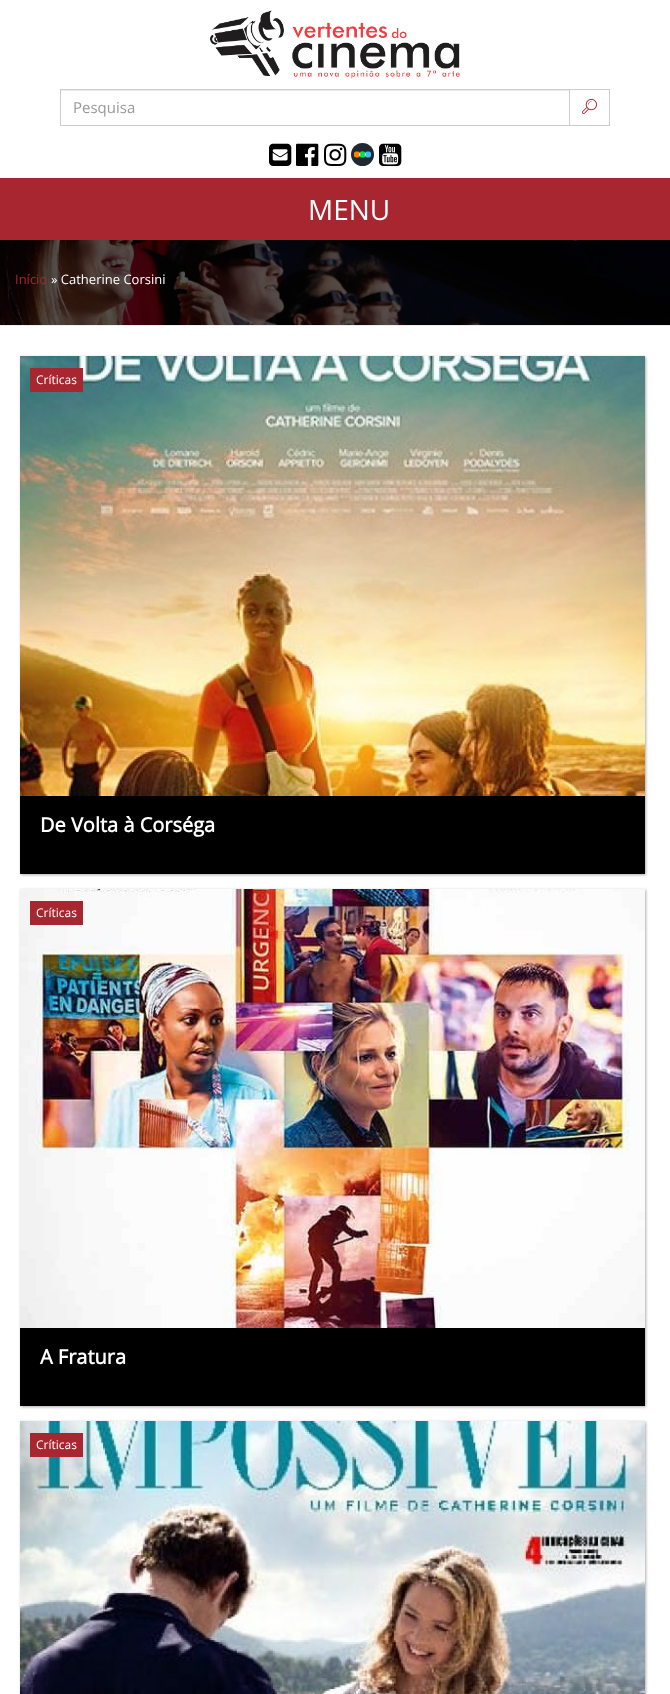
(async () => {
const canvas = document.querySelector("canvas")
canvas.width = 670
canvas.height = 1694
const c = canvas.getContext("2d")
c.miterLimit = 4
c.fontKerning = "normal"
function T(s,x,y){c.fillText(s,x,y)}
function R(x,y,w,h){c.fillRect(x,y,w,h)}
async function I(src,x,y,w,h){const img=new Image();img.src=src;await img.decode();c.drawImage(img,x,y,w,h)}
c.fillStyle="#fff"
R(0,0,670,1694)
await I("1.png",210,10,250,69)
c.fillStyle="#ececec"
R(61,90,508,1)
c.strokeStyle="#ccc"
c.strokeRect(60.5,89.5,509,36)
c.font="15px Open Sans"
c.fillStyle="#999"
T("Pesquisa",73,113)
c.strokeRect(569.5,89.5,40,36)
await I("2.png",582,98,15,16)
await I("3.png",269,143,23,23)
await I("4.png",296,143,23,23)
await I("5.png",324,143,23,23)
await I("6.png",351,143,23,23)
await I("7.png",379,143,23,23)
c.fillStyle="#a7262f"
R(0,178,670,62)
c.font="28px Open Sans"
c.fillStyle="#fff"
T("MENU",308,220)
await I("8.png",0,240,670,85)
c.fillStyle="#eee"
R(0,325,670,1)
c.font="13px Open Sans"
c.fillStyle="#a7262f"
T("Início",15,284)
c.fillStyle="#fff"
T("» Catherine Corsini",51,284)
c.fillStyle="#5a5a5a80"
c.filter="blur(1.5px)"
c.beginPath()
c.rect(21,357,625,518)
c.fill()
c.filter="none"
c.fillStyle="#000"
R(20,796,625,78)
await I("9.png",20,356,625,440)
c.fillStyle="#a7262f"
R(30,368,53,24)
c.font="12px Open Sans"
c.fillStyle="#fff"
T("Críticas",36,384)
c.font="bold 20px Open Sans"
T("De Volta à Corséga",40,832)
c.fillStyle="#5a5a5a80"
c.filter="blur(1.5px)"
c.beginPath()
c.rect(21,890,625,517)
c.fill()
c.filter="none"
c.fillStyle="#000"
R(20,1328,625,78)
await I("10.png",20,889,625,439)
c.fillStyle="#a7262f"
R(30,901,53,24)
c.font="12px Open Sans"
c.fillStyle="#fff"
T("Críticas",36,917)
c.font="bold 20px Open Sans"
T("A Fratura",40,1364)
c.fillStyle="#5a5a5a80"
c.filter="blur(1.5px)"
c.beginPath()
c.rect(21,1422,625,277)
c.fill()
c.filter="none"
await I("11.png",20,1421,625,273)
c.fillStyle="#a7262f"
R(30,1433,53,24)
c.font="12px Open Sans"
c.fillStyle="#fff"
T("Críticas",36,1449)
})()
